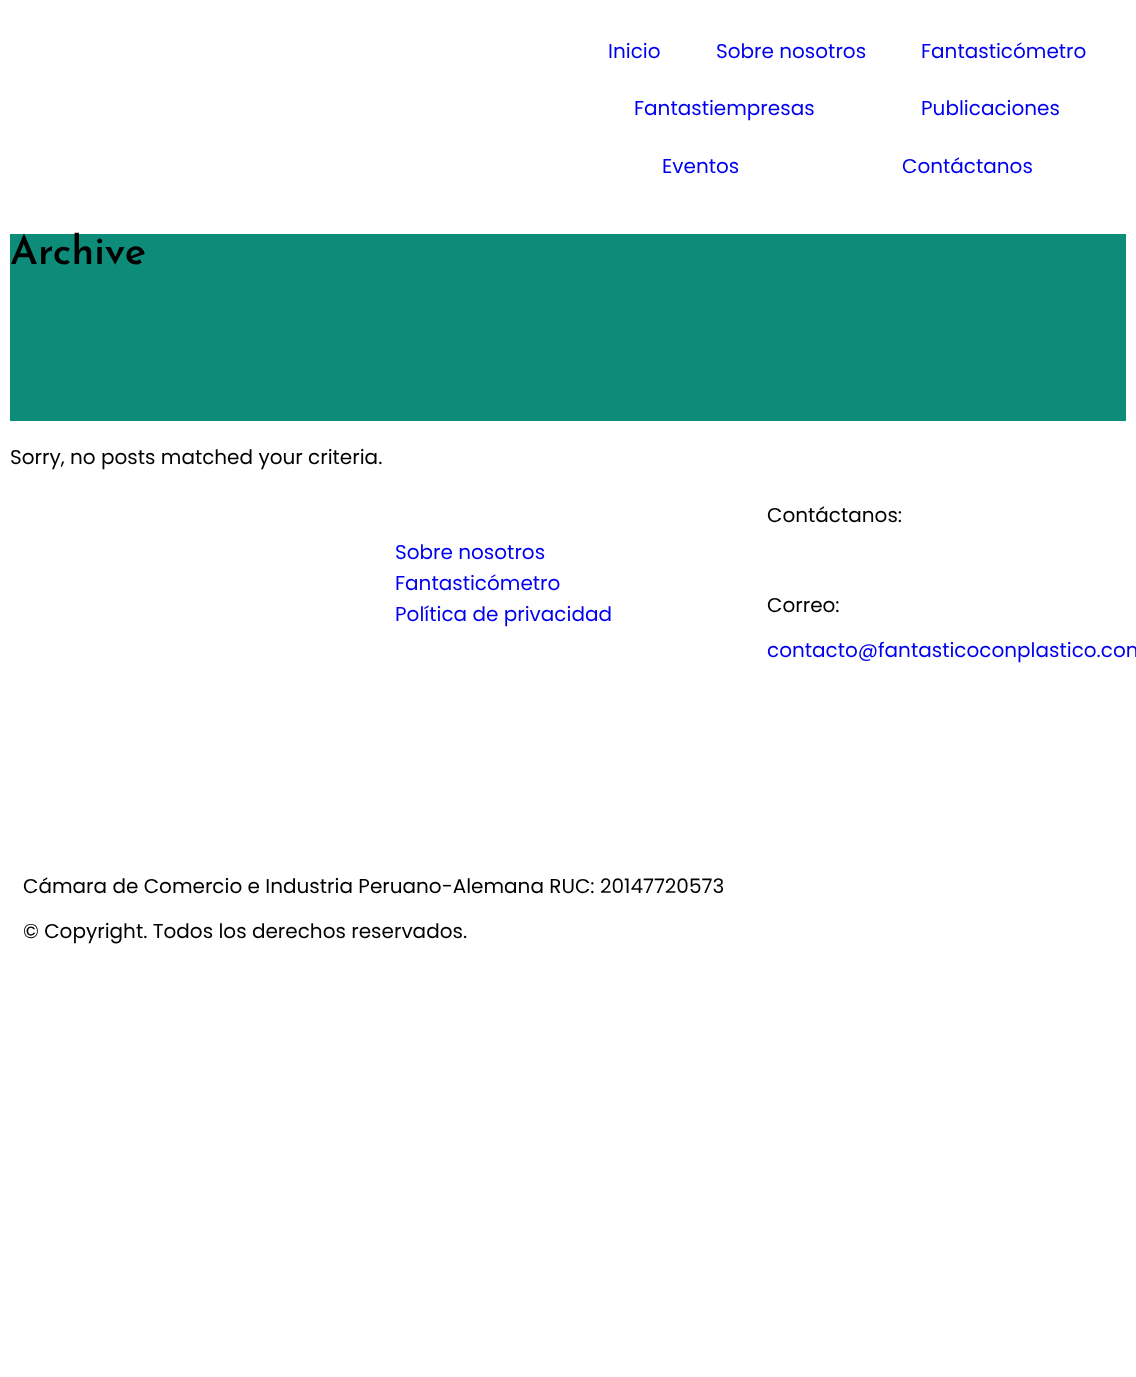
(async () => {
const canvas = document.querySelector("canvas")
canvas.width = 1136
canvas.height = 1377
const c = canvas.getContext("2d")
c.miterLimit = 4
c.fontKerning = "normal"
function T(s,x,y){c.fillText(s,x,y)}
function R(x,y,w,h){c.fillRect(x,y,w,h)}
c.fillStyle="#fff"
R(0,0,1136,1377)
c.font="20px Poppins"
c.fillStyle="#00e"
T("Inicio",608,58)
T("Sobre nosotros",716,58)
T("Fantasticómetro",921,58)
T("Fantastiempresas",634,115)
T("Publicaciones",921,115)
T("Eventos",662,173)
T("Contáctanos",902,173)
c.fillStyle="#0c8c79"
R(10,234,1116,187)
c.font="600 40px Josefin Sans"
c.fillStyle="#000"
T("Archive",10,264)
c.font="20px Poppins"
T("Sorry, no posts matched your criteria.",10,464)
c.fillStyle="#00e"
T("Sobre nosotros",395,559)
T("Fantasticómetro",395,590)
T("Política de privacidad",395,621)
c.fillStyle="#000"
T("Contáctanos:",767,522)
T("Correo:",767,612)
c.fillStyle="#00e"
T("contacto@fantasticoconplastico.com",767,657)
c.fillStyle="#000"
T("Cámara de Comercio e Industria Peruano-Alemana RUC: 20147720573",23,893)
T("© Copyright. Todos los derechos reservados.",23,938)
})()
